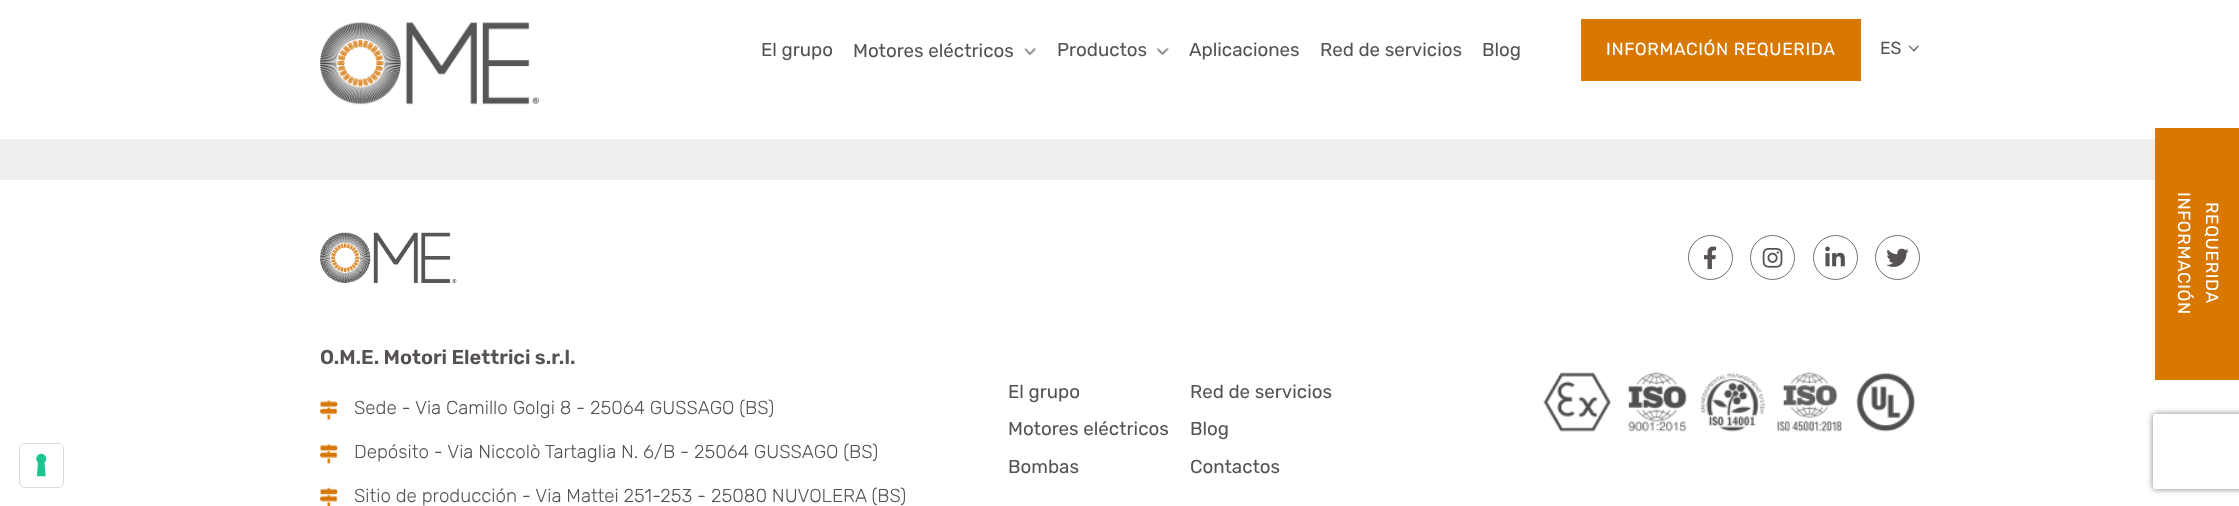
(async () => {
const canvas = document.querySelector("canvas")
canvas.width = 2239
canvas.height = 506
const c = canvas.getContext("2d")
c.miterLimit = 4
c.fontKerning = "normal"
function T(s,x,y){c.fillText(s,x,y)}
function R(x,y,w,h){c.fillRect(x,y,w,h)}
function Q(x,y,w,h,r){c.beginPath();c.roundRect(x,y,w,h,r);c.fill()}
async function I(src,x,y,w,h){const img=new Image();img.src=src;await img.decode();c.drawImage(img,x,y,w,h)}
let path
c.fillStyle="#fff"
R(0,0,2239,506)
await I("1.png",320,22,219,83)
c.font="18.75px Rubik"
c.fillStyle="#575252"
T("El grupo",761,56)
T("Motores eléctricos",853,57)
await I("2.png",1024,47,13,9)
T("Productos",1057,56)
await I("3.png",1157,47,12,9)
T("Aplicaciones",1189,56)
T("Red de servicios",1320,56)
T("Blog",1482,56)
c.fillStyle="#d87800"
R(1581,19,280,62)
c.letterSpacing="0.6px"
c.font="17.5px Rubik"
c.fillStyle="#fff"
T("INFORMACIÓN REQUERIDA",1606,55)
c.letterSpacing="0px"
c.fillStyle="#575252"
T("ES",1880,54)
path = new Path2D("M1913 50.5l5-5l1 .5l-5 5.5z")
c.fill(path)
path = new Path2D("M1908.5 46l1-.5l5 5l-.5 1z")
c.fill(path)
c.beginPath()
c.roundRect(19.5,443.5,44,44,5.5)
c.strokeStyle="#d9d9d9"
c.stroke()
c.fillStyle="#fff"
Q(20,444,43,42,5)
await I("4.png",36,453,11,24)
c.fillStyle="#eee"
R(0,139,2155,41)
c.save()
path = new Path2D("M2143 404h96v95h-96zm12.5 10h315c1.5 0 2.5 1 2.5 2.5v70c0 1.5-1 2.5-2.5 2.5h-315c-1.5 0-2.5-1-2.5-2.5v-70c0-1.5 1-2.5 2.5-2.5z")
c.clip(path,"evenodd")
c.fillStyle="#808080"
c.filter="blur(3px)"
c.beginPath()
c.roundRect(2153,414,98,75,2.5)
c.fill()
c.filter="none"
c.restore()
await I("5.png",320,232,137,51)
c.beginPath()
c.arc(1710.5,257.5,22,0,7)
c.strokeStyle="#69727d"
c.stroke()
await I("6.png",1704,246,12,24)
c.beginPath()
c.arc(1772.5,257.5,22,0,7)
c.stroke()
await I("7.png",1762,248,21,20)
c.beginPath()
c.arc(1835.5,257.5,22,0,7)
c.stroke()
await I("8.png",1825,246,20,21)
c.beginPath()
c.arc(1897.5,257.5,22,0,7)
c.stroke()
await I("9.png",1886,248,23,19)
c.fillStyle="#d87800"
R(2155,128,84,252)
c.letterSpacing="0.6px"
c.fillStyle="#fff"
c.save()
c.translate(2178,192)
c.rotate(90 * Math.PI / 180)
c.fillText("INFORMACIÓN",0,0)
c.restore()
c.save()
c.translate(2206,202)
c.rotate(90 * Math.PI / 180)
c.fillText("REQUERIDA",0,0)
c.restore()
c.letterSpacing="0px"
c.font="600 20px Rubik"
c.fillStyle="#575252"
T("O.M.E. Motori Elettrici s.r.l.",320,364)
await I("10.png",320,400,18,20)
c.font="300 18.75px Rubik"
T("Sede - Via Camillo Golgi 8 - 25064 GUSSAGO (BS)",354,414)
await I("11.png",320,443,18,21)
T("Depósito - Via Niccolò Tartaglia N. 6/B - 25064 GUSSAGO (BS)",354,458)
await I("12.png",320,487,18,19)
T("Sitio de producción - Via Mattei 251-253 - 25080 NUVOLERA (BS)",354,502)
c.font="18.75px Rubik"
T("El grupo",1008,398)
T("Red de servicios",1190,398)
T("Motores eléctricos",1008,435)
T("Blog",1190,435)
T("Bombas",1008,473)
T("Contactos",1190,473)
await I("13.png",1543,372,372,60)
})()
